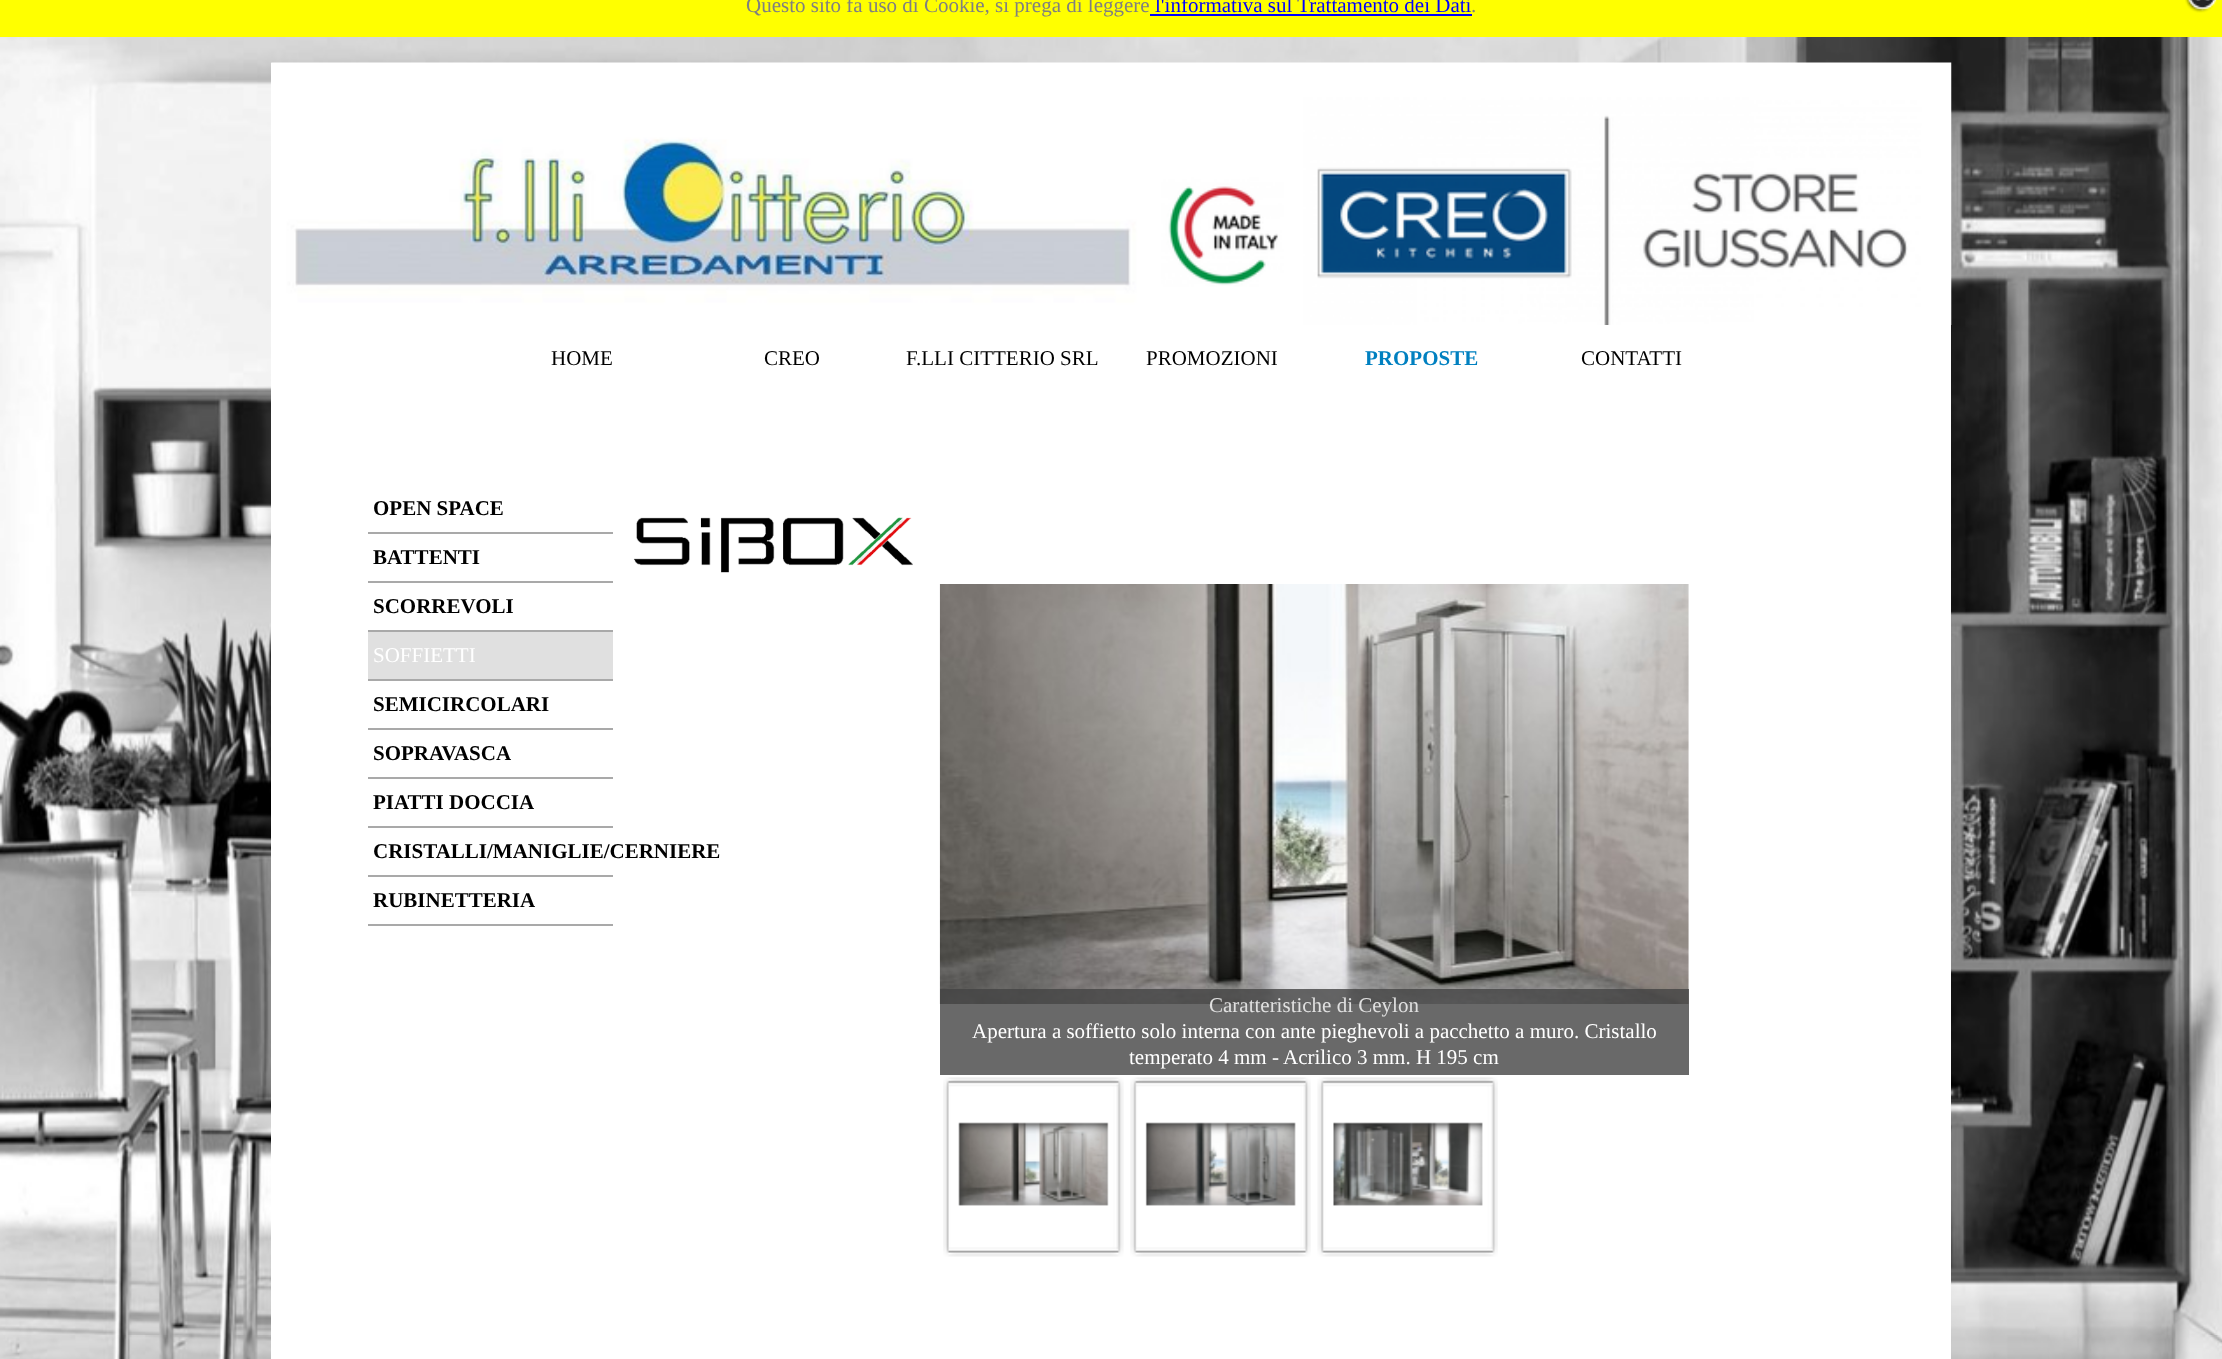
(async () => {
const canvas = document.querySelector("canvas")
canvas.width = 2222
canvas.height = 1359
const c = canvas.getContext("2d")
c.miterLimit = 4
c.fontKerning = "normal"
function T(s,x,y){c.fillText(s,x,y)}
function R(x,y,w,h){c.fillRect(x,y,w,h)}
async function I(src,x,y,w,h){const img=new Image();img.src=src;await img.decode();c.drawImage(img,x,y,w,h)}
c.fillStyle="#fff"
R(0,0,2222,1359)
await I("1.png",0,37,2222,1322)
c.fillStyle="#ff0"
R(0,0,2222,37)
c.font="21px Liberation Serif"
c.fillStyle="#808080"
T("Questo sito fa uso di Cookie, si prega di leggere",746,12)
c.fillStyle="#00f"
T("l'informativa sul Trattamento dei Dati",1155,12)
R(1150,14,322,2)
c.fillStyle="#808080"
T(".",1471,12)
await I("2.png",2185,0,32,13)
c.fillStyle="#fff"
R(271,63,1680,263)
await I("3.png",271,62,1681,263)
R(271,326,1680,1033)
c.fillStyle="#000"
T("HOME",551,365)
T("CREO",764,365)
T("F.LLI CITTERIO SRL",906,365)
T("PROMOZIONI",1146,365)
c.font="bold 21px Liberation Serif"
c.fillStyle="#0080c0"
T("PROPOSTE",1365,365)
c.font="21px Liberation Serif"
c.fillStyle="#000"
T("CONTATTI",1581,365)
c.fillStyle="#a9a9a9"
R(368,532,245,2)
c.font="bold 21px Liberation Serif"
c.fillStyle="#000"
T("OPEN SPACE",373,515)
c.fillStyle="#a9a9a9"
R(368,581,245,2)
c.fillStyle="#000"
T("BATTENTI",373,564)
c.fillStyle="#a9a9a9"
R(368,630,245,2)
c.fillStyle="#000"
T("SCORREVOLI",373,613)
c.fillStyle="#e0e0e0"
R(368,632,245,47)
c.fillStyle="#a9a9a9"
R(368,679,245,2)
c.font="21px Liberation Serif"
c.fillStyle="#fff"
T("SOFFIETTI",373,662)
c.fillStyle="#a9a9a9"
R(368,728,245,2)
c.font="bold 21px Liberation Serif"
c.fillStyle="#000"
T("SEMICIRCOLARI",373,711)
c.fillStyle="#a9a9a9"
R(368,777,245,2)
c.fillStyle="#000"
T("SOPRAVASCA",373,760)
c.fillStyle="#a9a9a9"
R(368,826,245,2)
c.fillStyle="#000"
T("PIATTI DOCCIA",373,809)
c.fillStyle="#a9a9a9"
R(368,875,245,2)
c.fillStyle="#000"
T("CRISTALLI/MANIGLIE/CERNIERE",373,858)
c.fillStyle="#a9a9a9"
R(368,924,245,2)
c.fillStyle="#000"
T("RUBINETTERIA",373,907)
await I("4.png",633,517,280,56)
await I("5.png",939,584,750,420)
c.fillStyle="#444444cc"
R(940,989,749,86)
c.font="21px Liberation Serif"
c.fillStyle="#e0e0e0"
T("Caratteristiche di Ceylon",1209,1012)
c.fillStyle="#fff"
T("Apertura a soffietto solo interna con ante pieghevoli a pacchetto a muro. Cristallo",972,1038)
T("temperato 4 mm - Acrilico 3 mm. H 195 cm",1129,1064)
await I("6.png",943,1077,181,180)
await I("7.png",1130,1077,181,180)
await I("8.png",1317,1077,181,180)
})()
